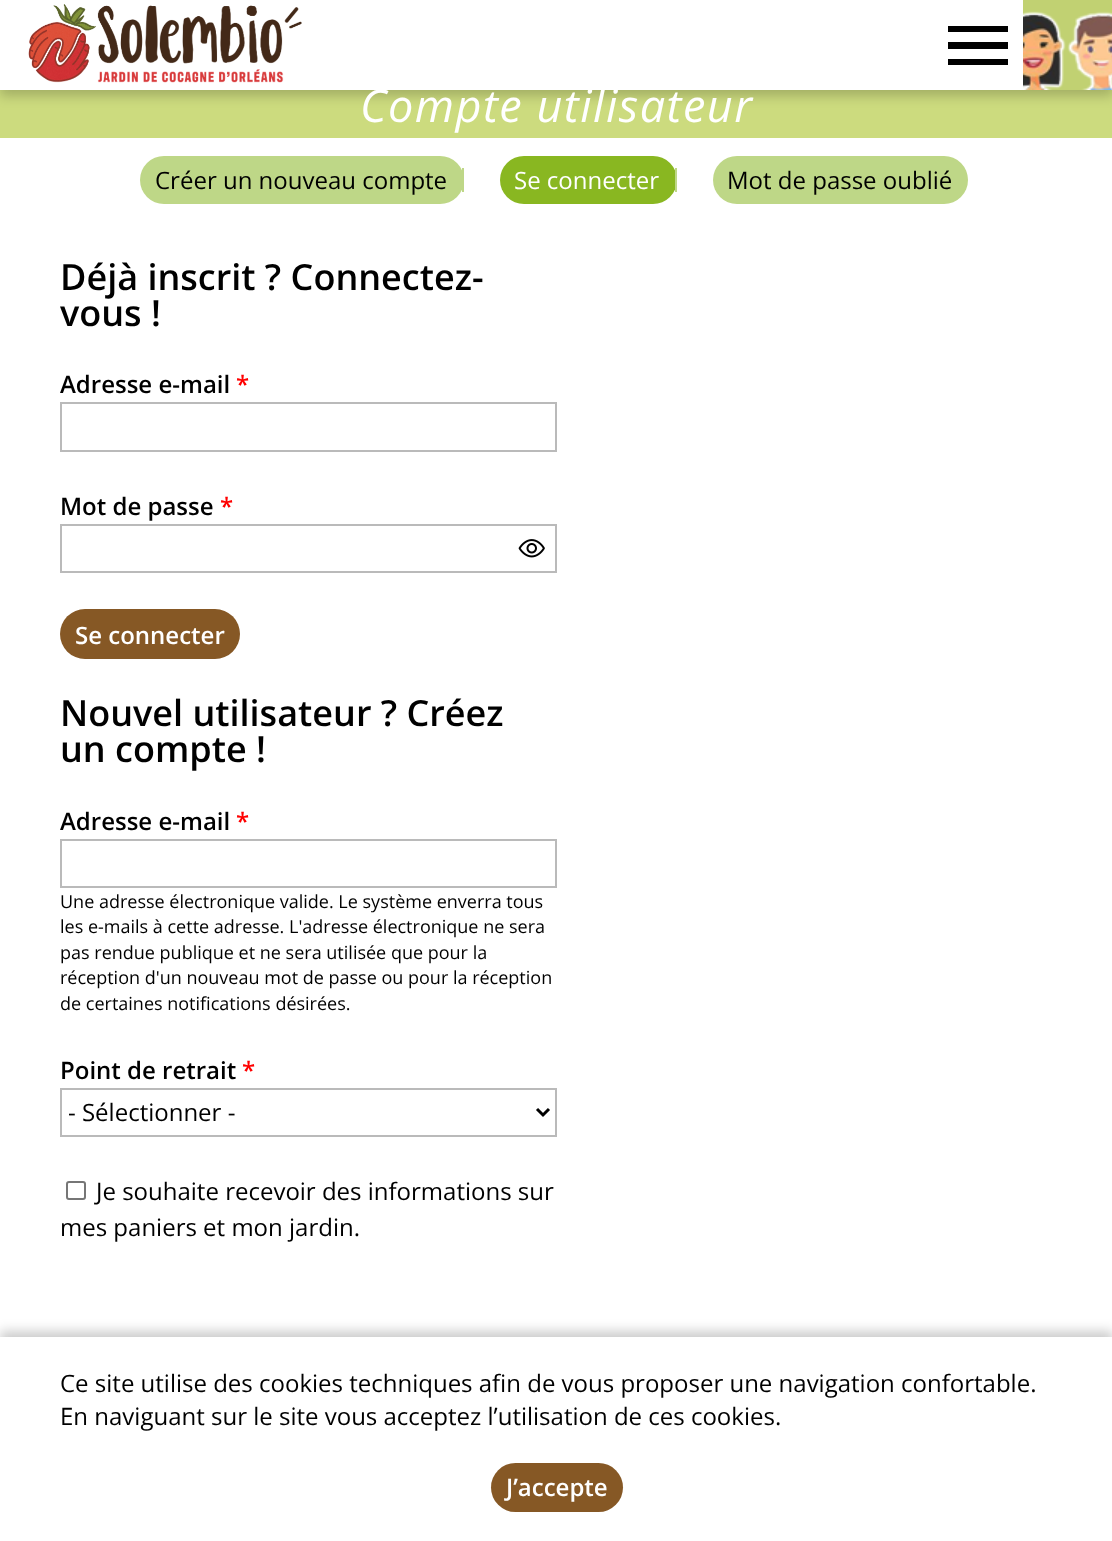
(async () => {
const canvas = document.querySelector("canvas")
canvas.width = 1112
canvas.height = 1541
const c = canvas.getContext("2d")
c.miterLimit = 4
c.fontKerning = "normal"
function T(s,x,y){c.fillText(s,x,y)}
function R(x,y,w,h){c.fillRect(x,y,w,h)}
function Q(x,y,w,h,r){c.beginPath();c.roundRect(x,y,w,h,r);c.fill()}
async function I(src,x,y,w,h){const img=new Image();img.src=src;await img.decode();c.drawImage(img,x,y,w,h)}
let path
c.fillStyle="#fff"
R(0,0,1112,1541)
c.fillStyle="#ccdb7e"
R(0,90,1112,48)
c.fillStyle="#00000033"
c.filter="blur(6px)"
c.beginPath()
c.rect(0,6,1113,90)
c.fill()
c.filter="none"
c.fillStyle="#fff"
R(0,0,1023,90)
await I("1.png",28,4,274,79)
c.fillStyle="#000"
path = new Path2D("M948 65h60v-6h-60zm0-16h60v-7h-60zm0-23v6h60v-6z")
c.fill(path,"evenodd")
c.fillStyle="#c1d172"
R(1023,0,89,90)
await I("2.png",1023,11,89,79)
c.letterSpacing="1.5px"
c.font="italic 45px Open Sans"
c.fillStyle="#fff"
T("Compte utilisateur",360,122)
c.fillStyle="#bed787"
Q(140,156,324,48,24)
R(462,168,2,24)
c.letterSpacing="0px"
c.font="24px Open Sans"
c.fillStyle="#000"
T("Créer un nouveau compte",155,189)
c.fillStyle="#89b721"
Q(500,156,177,48,24)
c.fillStyle="#bed787"
R(675,168,2,24)
c.fillStyle="#fff"
T("Se connecter",514,189)
c.fillStyle="#bed787"
Q(713,156,255,48,24)
c.fillStyle="#000"
T("Mot de passe oublié",727,189)
c.font="600 36px Open Sans"
T("Déjà inscrit ? Connectez-",60,290)
T("vous !",60,326)
c.font="600 24px Open Sans"
T("Adresse e-mail",60,393)
c.fillStyle="#f00"
T("*",236,393)
c.strokeStyle="#bababa"
c.lineWidth=2
c.strokeRect(61,403,495,48)
c.fillStyle="#000"
T("Mot de passe",60,515)
c.fillStyle="#f00"
T("*",220,515)
await I("3.png",518,539,27,19)
c.strokeRect(61,525,495,47)
c.fillStyle="#865825"
Q(60,609,180,50,25)
c.fillStyle="#fff"
T("Se connecter",75,644)
c.font="600 36px Open Sans"
c.fillStyle="#000"
T("Nouvel utilisateur ? Créez",60,726)
T("un compte !",60,762)
c.font="600 24px Open Sans"
T("Adresse e-mail",60,830)
c.fillStyle="#f00"
T("*",236,830)
c.strokeRect(61,840,495,47)
c.font="18px Open Sans"
c.fillStyle="#000"
T("Une adresse électronique valide. Le système enverra tous",60,908)
T("les e-mails à cette adresse. L'adresse électronique ne sera",60,933)
T("pas rendue publique et ne sera utilisée que pour la",60,959)
T("réception d'un nouveau mot de passe ou pour la réception",60,984)
T("de certaines notifications désirées.",60,1010)
c.font="600 24px Open Sans"
T("Point de retrait",60,1079)
c.fillStyle="#f00"
T("*",242,1079)
c.strokeRect(61,1089,495,47)
path = new Path2D("M537 1109l6 6l6-6")
c.strokeStyle="#000"
c.lineWidth=3
c.stroke(path)
c.font="24px Open Sans"
c.fillStyle="#000"
T("- Sélectionner -",68,1121)
c.beginPath()
c.roundRect(67,1182,18,17,2)
c.strokeStyle="#767676"
c.lineWidth=2
c.stroke()
T("Je souhaite recevoir des informations sur",96,1200)
T("mes paniers et mon jardin.",60,1236)
c.fillStyle="#00000033"
c.filter="blur(6px)"
c.beginPath()
c.rect(0,1331,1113,205)
c.fill()
c.filter="none"
c.fillStyle="#fff"
R(0,1337,1112,204)
c.fillStyle="#000"
T("Ce site utilise des cookies techniques afin de vous proposer une navigation confortable.",60,1392)
T("En naviguant sur le site vous acceptez l’utilisation de ces cookies.",60,1425)
c.fillStyle="#865825"
Q(491,1463,132,49,24.5)
c.font="600 24px Open Sans"
c.fillStyle="#fff"
T("J’accepte",506,1496)
})()
